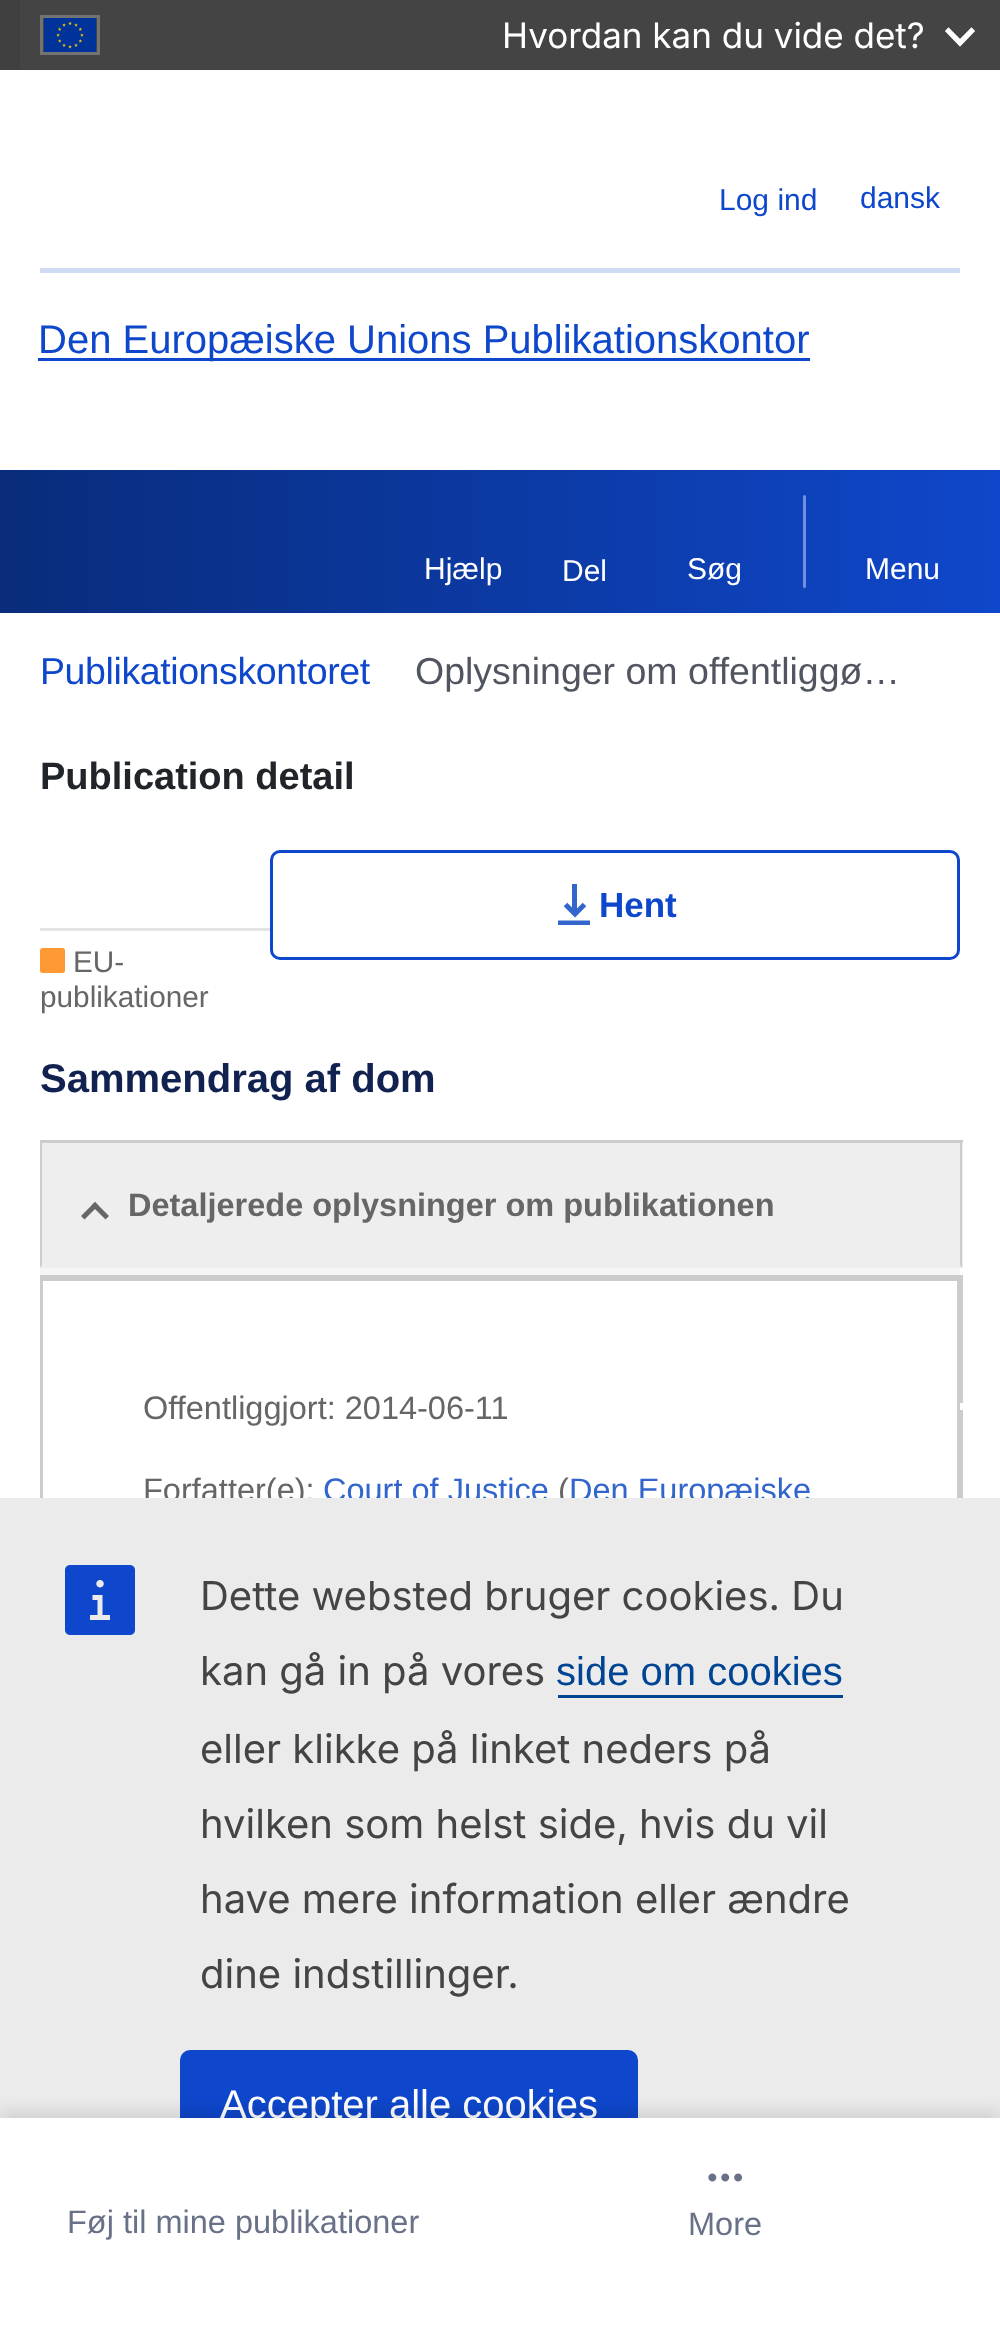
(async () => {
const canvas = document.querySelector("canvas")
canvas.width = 1000
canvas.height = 2349
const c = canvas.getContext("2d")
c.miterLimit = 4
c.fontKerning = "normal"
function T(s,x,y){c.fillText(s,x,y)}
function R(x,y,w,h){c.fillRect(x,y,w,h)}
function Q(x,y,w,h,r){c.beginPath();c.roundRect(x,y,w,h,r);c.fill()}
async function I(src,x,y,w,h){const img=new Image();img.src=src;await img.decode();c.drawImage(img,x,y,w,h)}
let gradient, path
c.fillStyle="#fff"
R(0,0,1000,2349)
c.fillStyle="#404040"
R(0,0,20,70)
c.fillStyle="#444"
R(20,0,980,70)
c.strokeStyle="#737373"
c.lineWidth=3
c.strokeRect(41.5,16.5,57,37)
await I("1.png",44,18,52,34)
c.font="35px Inter"
c.fillStyle="#fff"
T("Hvordan kan du vide det?",502,48)
path = new Path2D("M947 31l1.5-1.5l11.5 11.5l11.5-11.5l1.5 1.5l-13 13.5z")
c.strokeStyle="#fff"
c.lineWidth=3.1
c.stroke(path)
c.strokeStyle="#ccc"
c.lineWidth=3
c.strokeRect(41.5,1411.5,920,125)
c.strokeRect(41.5,1276.5,920,125)
R(43,1400,914,13)
c.strokeRect(41.5,1279.5,917,674)
c.font="32.5px Liberation Sans"
c.fillStyle="#666"
T("Forfatter(e):",143,1501)
c.fillStyle="#36c"
T("Court of Justice",323,1501)
c.fillStyle="#666"
T("(",558,1501)
c.fillStyle="#36c"
T("Den Europæiske",569,1501)
c.fillStyle="#ebebeb"
R(0,1498,1000,620)
await I("2.png",65,1565,70,70)
c.font="40px Inter"
c.fillStyle="#444"
T("Dette websted bruger cookies. Du",200,1610)
T("kan gå in på vores",200,1685)
c.font="40px Liberation Sans"
c.fillStyle="#004494"
T("side om cookies",556,1685)
R(558,1695,285,3)
c.font="40px Inter"
c.fillStyle="#444"
T("eller klikke på linket neders på",200,1763)
T("hvilken som helst side, hvis du vil",200,1838)
T("have mere information eller ændre",200,1913)
T("dine indstillinger.",200,1988)
c.fillStyle="#0e47cb"
Q(180,2050,458,110,10)
c.font="40px Liberation Sans"
c.fillStyle="#fff"
T("Accepter alle cookies",220,2118)
c.font="30px Liberation Sans"
c.fillStyle="#0e47cb"
T("Log ind",719,210)
T("dansk",860,208)
c.fillStyle="#cfdaf5"
R(40,268,920,5)
c.fillStyle="#0e47cb"
R(38,358,772,3)
c.font="40px Liberation Sans"
T("Den Europæiske Unions Publikationskontor",38,353)
gradient = c.createLinearGradient(0,541,1000,541)
gradient.addColorStop(0,"#092c7b")
gradient.addColorStop(1,"#0f47cb")
c.fillStyle = gradient
R(0,470,1000,143)
c.font="30px Liberation Sans"
c.fillStyle="#fff"
T("Hjælp",424,579)
T("Del",562,581)
T("Søg",687,579)
c.fillStyle="#6e91e0"
Q(803,495,3,93,1.5)
c.fillStyle="#fff"
T("Menu",865,579)
c.letterSpacing="-0.4px"
c.font="37.5px Liberation Sans"
c.fillStyle="#0e47cb"
T("Publikationskontoret",40,684)
c.letterSpacing="0px"
c.fillStyle="#515560"
T("Oplysninger om offentliggø…",415,684)
c.font="bold 38px Liberation Sans"
c.fillStyle="#212529"
T("Publication detail",40,789)
c.beginPath()
c.roundRect(271.5,851.5,687,107,8.5)
c.strokeStyle="#0e47cb"
c.stroke()
c.save()
path = new Path2D("M552.5 880h45v45h-45z")
c.clip(path)
path = new Path2D("M558 923h32")
c.strokeStyle="#36c"
c.lineWidth=5
c.stroke(path)
c.restore()
c.fillStyle="#36c"
R(572,884,5,28)
path = new Path2D("M565.5 904.5l9.5 9.5l9.5-9.5")
c.strokeStyle="#36c"
c.lineWidth=5
c.stroke(path)
c.font="bold 35px Liberation Sans"
c.fillStyle="#0e47cb"
T("Hent",599,917)
c.fillStyle="#e4e4e4"
R(40,928,230,3)
c.fillStyle="#f93"
Q(40,948,25,25,2.5)
c.font="29.75px Liberation Sans"
c.fillStyle="#666"
T("EU-",73,972)
T("publikationer",40,1007)
c.font="bold 40px Liberation Sans"
c.fillStyle="#112250"
T("Sammendrag af dom",40,1092)
c.fillStyle="#f5f5f5"
R(40,1268,920,7)
c.fillStyle="#eee"
R(40,1143,923,125)
c.fillStyle="#666"
path = new Path2D("M84.5 1219.5l-3.5-3.5l14-14l3.5 3.5z")
c.fill(path)
path = new Path2D("M105.5 1219.5l-14-14l3.5-3.5l14 14z")
c.fill(path)
c.fillStyle="#ccc"
R(40,1140,923,3)
path = new Path2D("M962 1140v128l-2-3v-123z")
c.fill(path)
path = new Path2D("M40 1268v-128l2 2v123z")
c.fill(path)
c.font="bold 32.5px Liberation Sans"
c.fillStyle="#666"
T("Detaljerede oplysninger om publikationen",128,1216)
c.font="32.5px Liberation Sans"
T("Offentliggjort: 2014-06-11",143,1419)
c.fillStyle="#0000001a"
c.filter="blur(7.5px)"
c.beginPath()
c.rect(0,2110,1000,233)
c.fill()
c.filter="none"
c.fillStyle="#fff"
R(0,2118,1000,231)
c.fillStyle="#697188"
T("Føj til mine publikationer",67,2233)
await I("3.png",708,2173,35,9)
T("More",688,2235)
})()
